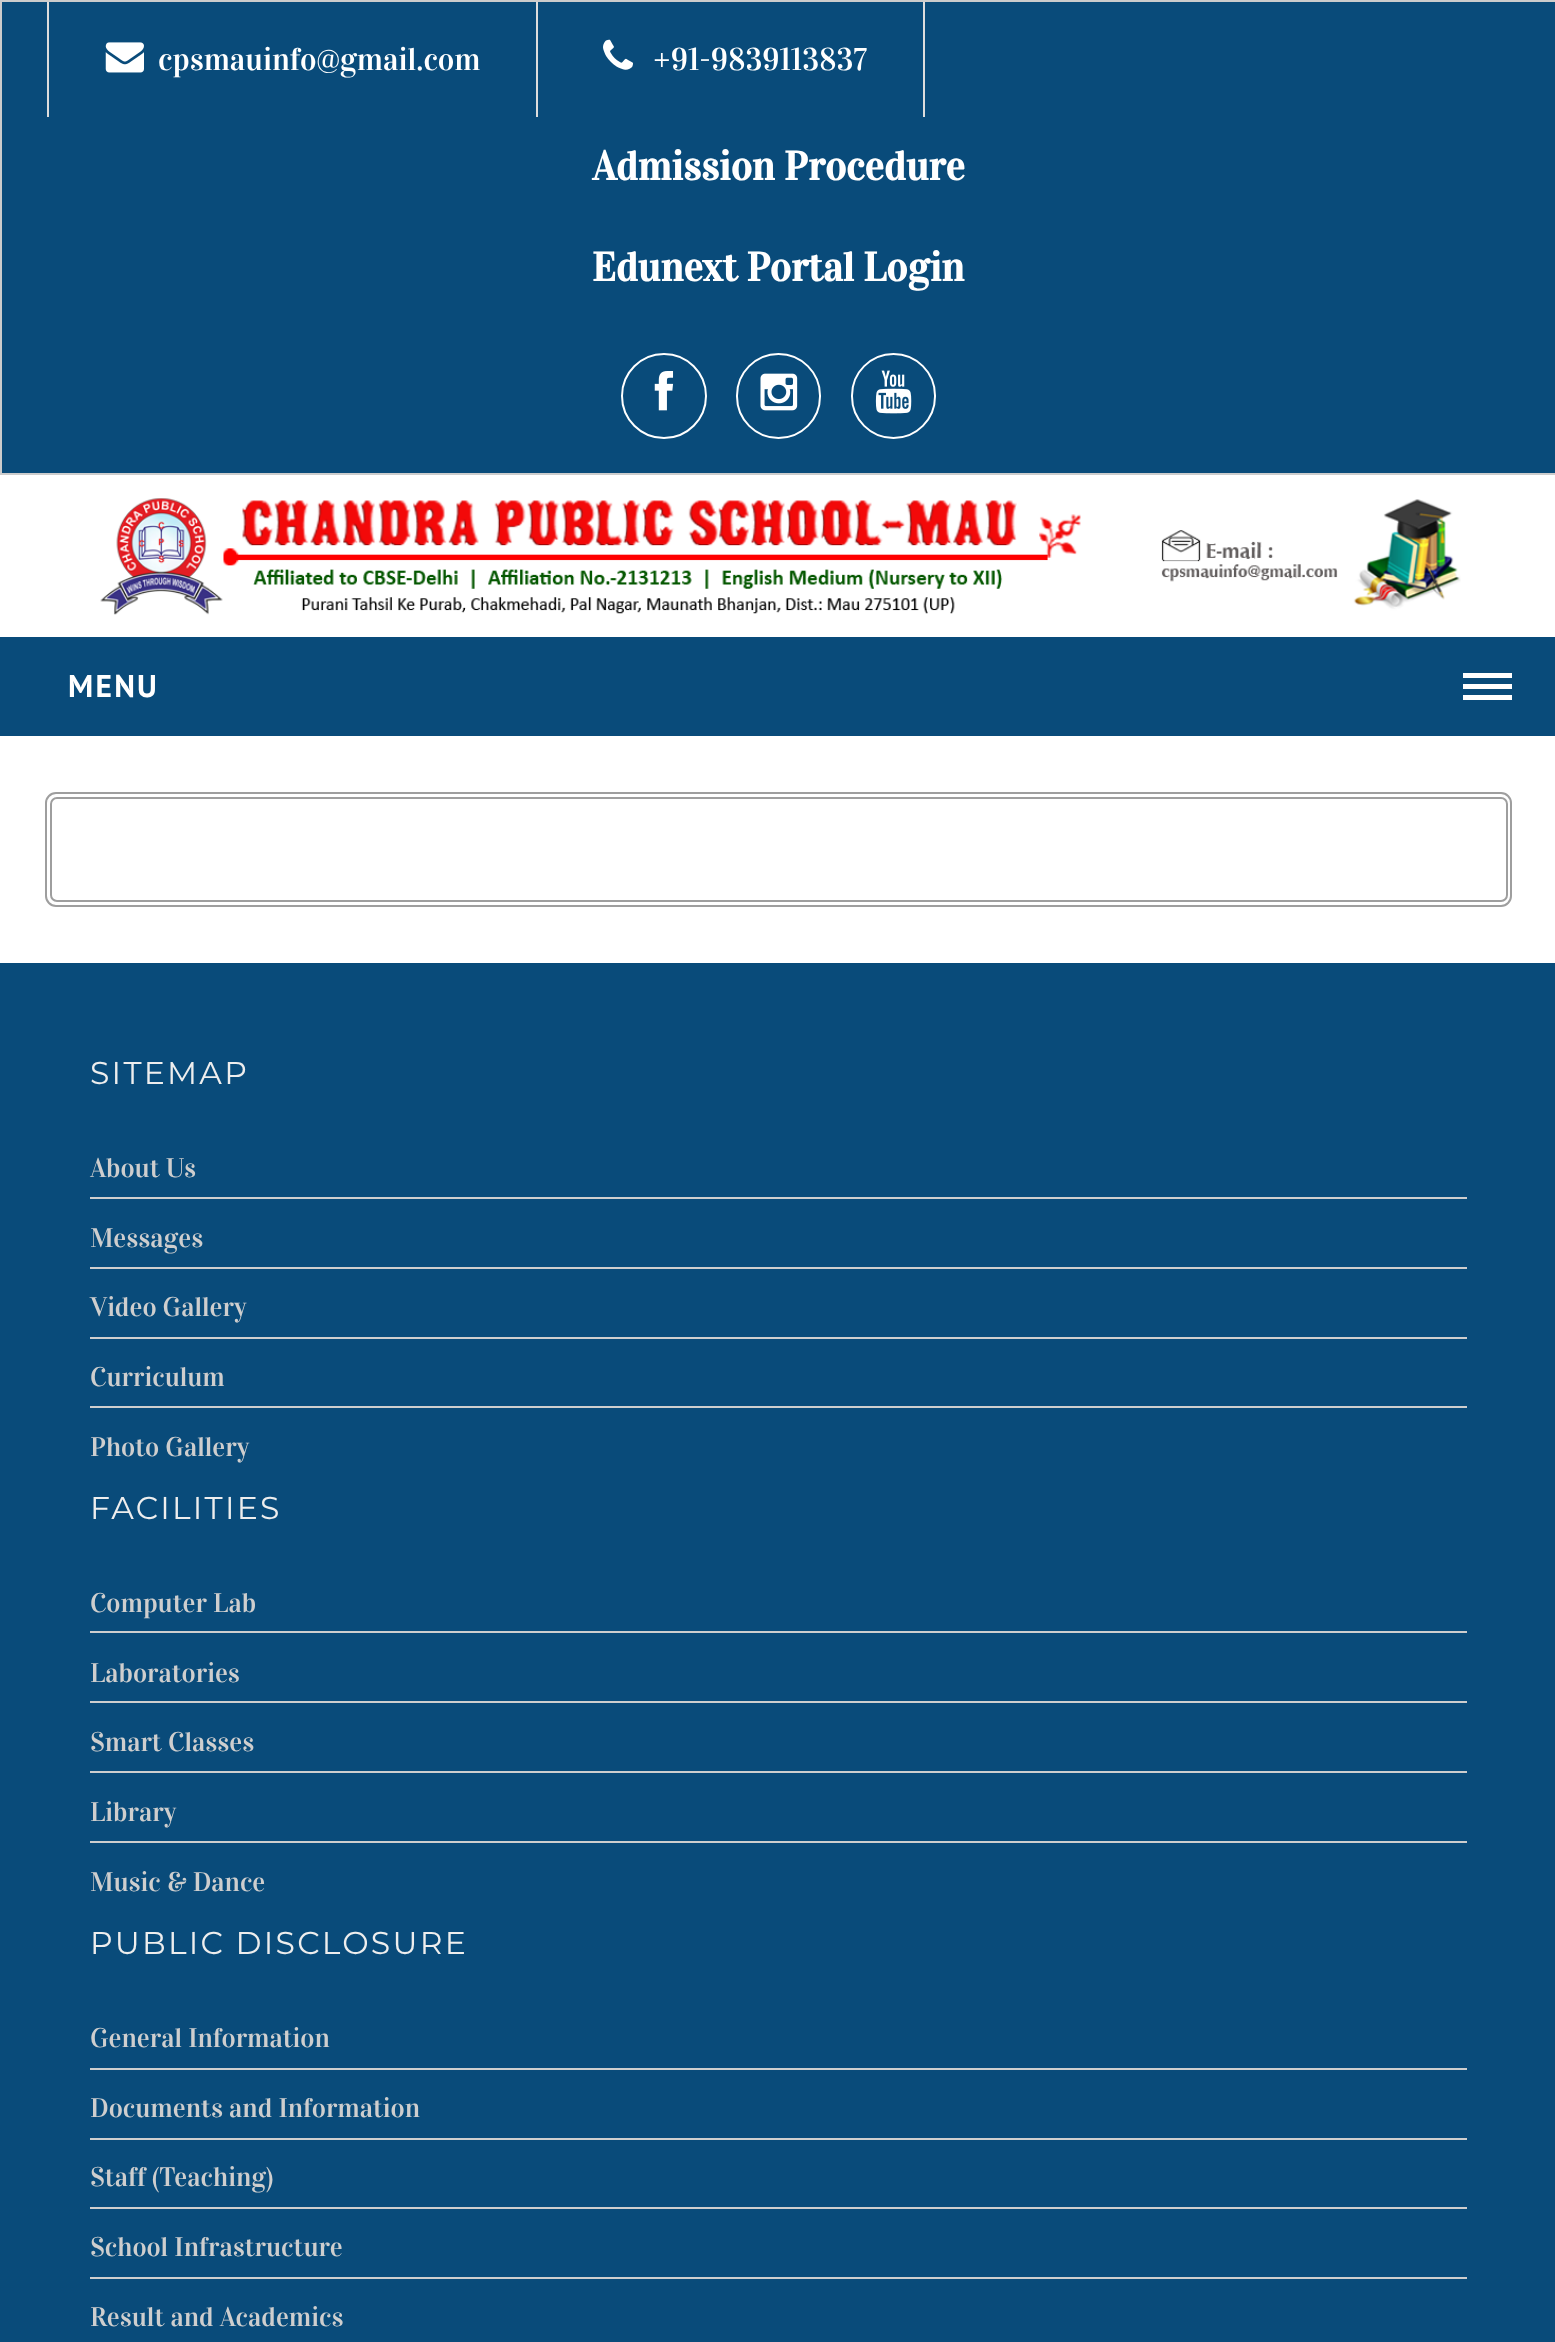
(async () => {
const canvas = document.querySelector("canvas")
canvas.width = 1555
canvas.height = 2342
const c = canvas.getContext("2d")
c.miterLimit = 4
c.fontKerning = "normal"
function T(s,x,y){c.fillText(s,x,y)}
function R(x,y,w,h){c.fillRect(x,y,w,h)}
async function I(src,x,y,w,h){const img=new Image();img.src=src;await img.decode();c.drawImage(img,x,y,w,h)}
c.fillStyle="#fff"
R(0,0,1555,2342)
c.fillStyle="#094b7a"
c.beginPath()
c.rect(1,1,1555,473)
c.fill()
c.strokeStyle="#ccc"
c.lineWidth=2
c.stroke()
c.fillStyle="#ddd"
R(536,2,2,115)
R(47,2,2,115)
await I("1.png",105,42,39,31)
c.font="31.5px Vidaloka"
c.fillStyle="#fff"
T("cpsmauinfo@gmail.com",158,70)
c.fillStyle="#ddd"
R(923,2,2,115)
await I("2.png",603,39,30,31)
c.fillStyle="#fff"
T("+91-9839113837",653,70)
c.font="bold 40.5px Vidaloka"
T("Admission Procedure",592,180)
T("Edunext Portal Login",592,281)
c.beginPath()
c.arc(664,396,42,0,7)
c.strokeStyle="#fff"
c.stroke()
await I("3.png",654,371,20,40)
c.beginPath()
c.roundRect(737,354,83,84,41.5)
c.stroke()
await I("4.png",760,373,38,38)
c.beginPath()
c.roundRect(852,354,83,84,41.5)
c.stroke()
await I("5.png",875,370,37,44)
await I("6.png",100,498,1361,117)
c.fillStyle="#094b7a"
R(0,637,1555,99)
c.letterSpacing="2.25px"
c.font="bold 31.5px PT Sans"
c.fillStyle="#fff"
T("MENU",68,697)
R(1463,673,49,5)
R(1463,684,49,5)
R(1463,695,49,5)
c.beginPath()
c.roundRect(46,793,1465,113,10)
c.strokeStyle="#9e9e9e"
c.stroke()
c.beginPath()
c.roundRect(51,798,1456,103,6)
c.stroke()
c.fillStyle="#094b7a"
R(0,963,1555,1379)
c.font="100 31.5px Montserrat"
c.fillStyle="#eee"
T("SITEMAP",90,1084)
c.fillStyle="#cecece"
R(90,1197,1377,2)
c.letterSpacing="0px"
c.font="27px Vidaloka"
T("About Us",90,1177)
R(90,1267,1377,2)
T("Messages",90,1247)
R(90,1337,1377,2)
T("Video Gallery",90,1316)
R(90,1406,1377,2)
T("Curriculum",90,1386)
T("Photo Gallery",90,1456)
c.letterSpacing="2.25px"
c.font="100 31.5px Montserrat"
c.fillStyle="#eee"
T("FACILITIES",90,1519)
c.fillStyle="#cecece"
R(90,1631,1377,2)
c.letterSpacing="0px"
c.font="27px Vidaloka"
T("Computer Lab",90,1612)
R(90,1701,1377,2)
T("Laboratories",90,1682)
R(90,1771,1377,2)
T("Smart Classes",90,1751)
R(90,1841,1377,2)
T("Library",90,1821)
T("Music & Dance",90,1891)
c.letterSpacing="2.25px"
c.font="100 31.5px Montserrat"
c.fillStyle="#eee"
T("PUBLIC DISCLOSURE",90,1954)
c.fillStyle="#cecece"
R(90,2068,1377,2)
c.letterSpacing="0px"
c.font="27px Vidaloka"
T("General Information",90,2047)
R(90,2138,1377,2)
T("Documents and Information",90,2117)
R(90,2207,1377,2)
T("Staff (Teaching)",90,2186)
R(90,2277,1377,2)
T("School Infrastructure",90,2256)
T("Result and Academics",90,2326)
})()
